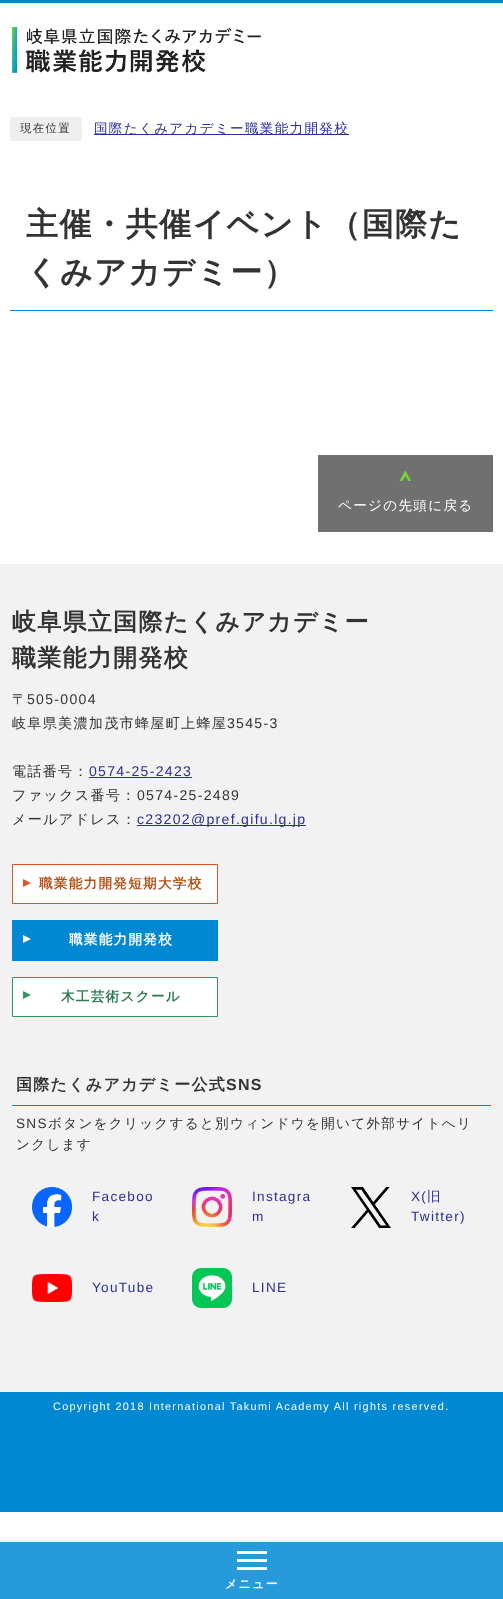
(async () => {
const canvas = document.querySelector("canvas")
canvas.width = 503
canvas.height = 1599
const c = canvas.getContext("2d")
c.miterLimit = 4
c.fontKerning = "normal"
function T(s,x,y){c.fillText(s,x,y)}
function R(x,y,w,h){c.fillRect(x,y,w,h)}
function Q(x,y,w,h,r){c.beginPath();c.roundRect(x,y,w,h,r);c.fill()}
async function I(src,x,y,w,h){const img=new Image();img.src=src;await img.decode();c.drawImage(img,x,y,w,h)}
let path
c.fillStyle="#fff"
R(0,0,503,1599)
c.fillStyle="#efefef"
Q(10,117,72,24,2)
c.letterSpacing="1.28px"
c.font="500 11.5px WenQuanYi Zen Hei"
c.fillStyle="#333"
T("現在位置",20,132)
c.fillStyle="#2b3095"
R(94,134,255,1)
c.font="500 13.6px WenQuanYi Zen Hei"
T("国際たくみアカデミー職業能力開発校",94,133)
c.fillStyle="#0088d3"
R(10,310,483,1)
c.font="bold 32px WenQuanYi Zen Hei"
c.fillStyle="#333"
T("主催・共催イベント（国際た",26,235)
T("くみアカデミー）",26,283)
c.fillStyle="#707070"
R(318,455,175,77)
c.fillStyle="#75d638"
path = new Path2D("M411 481h-2.5l-3-5l-3 5h-3l5.5-10h.5l5.5 9.5z")
c.fill(path)
c.font="500 13.6px WenQuanYi Zen Hei"
c.fillStyle="#fff"
T("ページの先頭に戻る",338,510)
c.fillStyle="#f2f2f2"
R(0,564,503,828)
c.font="bold 24px WenQuanYi Zen Hei"
c.fillStyle="#333"
T("岐阜県立国際たくみアカデミー",12,630)
T("職業能力開発校",12,666)
c.font="500 14.1px WenQuanYi Zen Hei"
T("〒",12,704)
c.font="14.1px Liberation Sans"
T("505-0004",27,704)
c.font="500 14.1px WenQuanYi Zen Hei"
T("岐阜県美濃加茂市蜂屋町上蜂屋",12,728)
c.font="14.1px Liberation Sans"
T("3545-3",227,728)
c.font="500 14.1px WenQuanYi Zen Hei"
T("電話番号：",12,776)
c.font="14.1px Liberation Sans"
c.fillStyle="#2b3095"
T("0574-25-2423",89,776)
R(89,777,103,1)
c.font="500 14.1px WenQuanYi Zen Hei"
c.fillStyle="#333"
T("ファックス番号：",12,800)
c.font="14.1px Liberation Sans"
T("0574-25-2489",137,800)
c.font="500 14.1px WenQuanYi Zen Hei"
T("メールアドレス：",12,824)
c.fillStyle="#2b3095"
R(137,825,169,1)
c.font="14.1px Liberation Sans"
T("c23202@pref.gifu.lg.jp",137,824)
c.fillStyle="#fff"
c.beginPath()
c.rect(12.5,864.5,205,39)
c.fill()
c.strokeStyle="#df5329"
c.stroke()
c.fillStyle="#df5329"
path = new Path2D("M23 887v-8l8 4z")
c.fill(path)
c.font="bold 13.6px WenQuanYi Zen Hei"
c.fillStyle="#b55017"
T("職業能力開発短期大学校",39,888)
c.fillStyle="#0088d3"
R(12,920,206,41)
c.fillStyle="#fff"
path = new Path2D("M23 943v-8l8 4z")
c.fill(path)
T("職業能力開発校",69,944)
c.beginPath()
c.rect(12.5,977.5,205,39)
c.fill()
c.strokeStyle="#379563"
c.stroke()
c.fillStyle="#379563"
path = new Path2D("M23 999v-8l8 4z")
c.fill(path)
c.fillStyle="#2e7d53"
T("木工芸術スクール",61,1001)
c.fillStyle="#0088d3"
R(12,1105,479,1)
c.font="bold 16px WenQuanYi Zen Hei"
c.fillStyle="#333"
T("国際たくみアカデミー公式",16,1090)
c.font="bold 16px Liberation Sans"
T("SNS",226,1090)
c.font="13.6px Liberation Sans"
T("SNS",16,1128)
c.font="500 13.6px WenQuanYi Zen Hei"
T("ボタンをクリックすると別ウィンドウを開いて外部サイトへリ",48,1128)
T("ンクします",16,1149)
await I("1.png",32,1187,40,40)
c.font="13.6px Liberation Sans"
c.fillStyle="#2b3095"
T("Faceboo",92,1201)
T("k",92,1221)
await I("2.png",192,1187,40,40)
T("Instagra",252,1201)
T("m",252,1221)
await I("3.png",351,1187,40,41)
T("X(",411,1201)
c.font="500 13.6px WenQuanYi Zen Hei"
T("旧",427,1201)
c.font="13.6px Liberation Sans"
T("Twitter)",411,1221)
await I("4.png",32,1274,40,28)
T("YouTube",92,1292)
await I("5.png",192,1268,40,40)
T("LINE",252,1292)
c.fillStyle="#0088d3"
R(0,1392,503,120)
c.font="10.9px Liberation Sans"
c.fillStyle="#fff"
T("Copyright 2018 International Takumi Academy All rights reserved.",53,1410)
c.fillStyle="#0088d3"
R(0,0,503,3)
await I("6.png",12,27,249,46)
c.fillStyle="#f2f2f2"
R(0,1540,503,2)
c.fillStyle="#269ada"
R(0,1542,503,57)
c.fillStyle="#fff"
R(237,1567,30,3)
R(237,1551,30,3)
R(237,1559,30,3)
c.font="bold 12px WenQuanYi Zen Hei"
T("メニュー",225,1588)
})()
